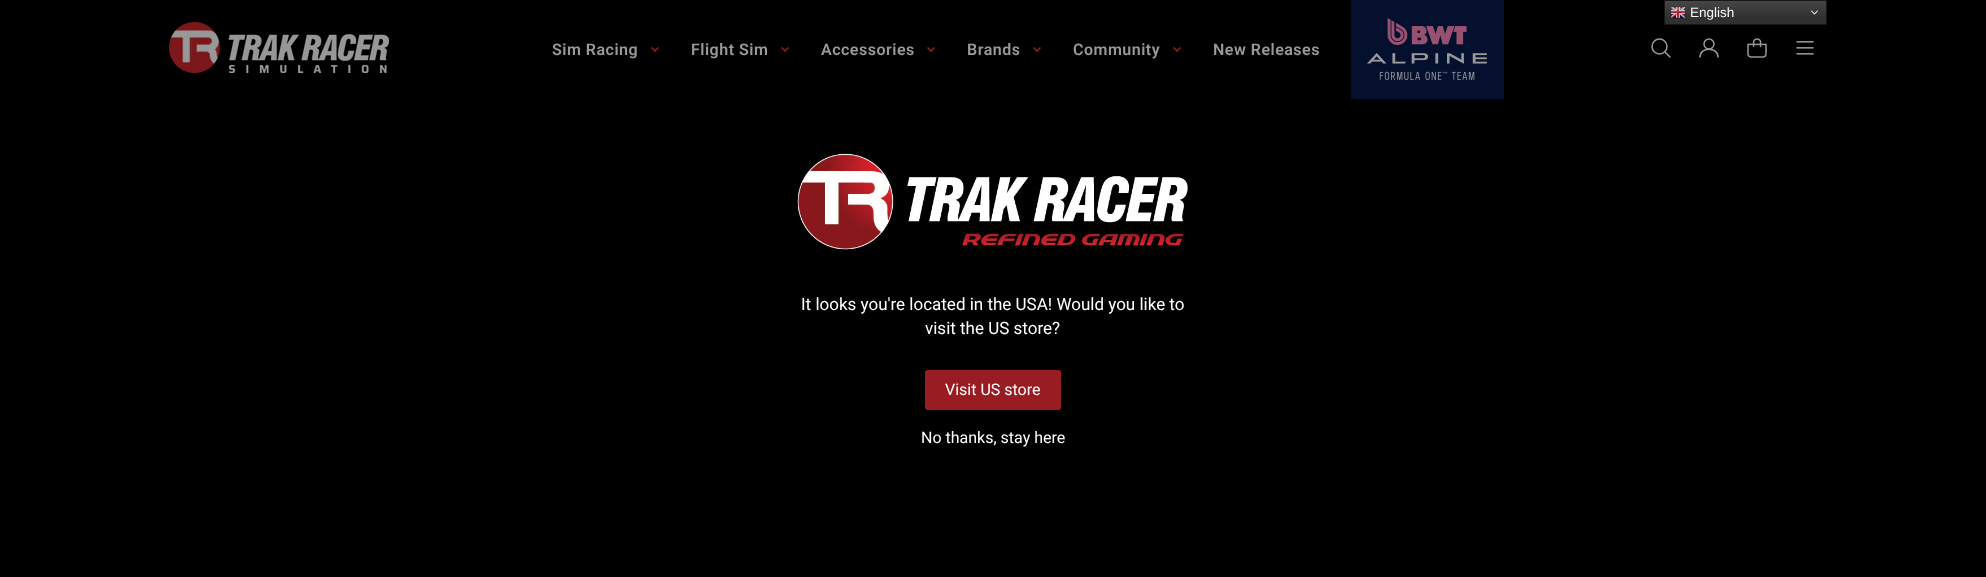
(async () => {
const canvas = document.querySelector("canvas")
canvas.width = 1986
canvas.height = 577
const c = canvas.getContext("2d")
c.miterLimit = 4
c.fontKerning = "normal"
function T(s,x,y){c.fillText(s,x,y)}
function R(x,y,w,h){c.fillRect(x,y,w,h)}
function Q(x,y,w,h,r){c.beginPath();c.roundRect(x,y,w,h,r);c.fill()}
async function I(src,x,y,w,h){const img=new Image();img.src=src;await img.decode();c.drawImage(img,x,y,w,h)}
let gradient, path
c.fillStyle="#000"
R(0,0,1986,577)
gradient = c.createLinearGradient(1746,0,1746,25)
gradient.addColorStop(0,"#474747")
gradient.addColorStop(.7,"#303030")
c.fillStyle = gradient
R(1665,1,161,23)
c.strokeStyle="#161616"
c.strokeRect(1664.5,.5,162,24)
await I("1.png",1670,6,16,13)
c.font="13.5px Liberation Sans"
c.fillStyle="#f7f7f7"
T("English",1690,17)
await I("2.png",1811,10,7,5)
await I("3.png",169,22,220,51)
c.letterSpacing="0.5px"
c.font="600 16px Roboto"
c.fillStyle="#999"
T("Sim Racing",552,55)
path = new Path2D("M651.5 47.5l3.5 3.5l3.5-3.5")
c.strokeStyle="#8c1c1c"
c.lineWidth=1.7
c.stroke(path)
T("Flight Sim",691,55)
path = new Path2D("M781.5 47.5l3.5 3.5l3.5-3.5")
c.stroke(path)
T("Accessories",821,55)
path = new Path2D("M927.5 47.5l3.5 3.5l3.5-3.5")
c.stroke(path)
T("Brands",967,55)
path = new Path2D("M1033.5 47.5l3.5 3.5l3.5-3.5")
c.stroke(path)
T("Community",1073,55)
path = new Path2D("M1173.5 47.5l3.5 3.5l3.5-3.5")
c.stroke(path)
T("New Releases",1213,55)
c.fillStyle="#04102e"
R(1351,0,153,99)
await I("4.png",1367,18,121,62)
c.beginPath()
c.arc(1659.5,46.5,7.5,0,7)
c.strokeStyle="#999"
c.lineWidth=1.5
c.stroke()
path = new Path2D("M1670 57l-5-5")
c.lineCap="round"
c.stroke(path)
c.beginPath()
c.arc(1709,44,5,0,7)
c.stroke()
path = new Path2D("M1718 57c0-10.5-18-10.5-18 0")
c.stroke(path)
await I("5.png",1747,38,20,20)
await I("6.png",1796,41,18,14)
await I("7.png",795,152,393,100)
c.letterSpacing="0px"
c.font="17px Roboto"
c.fillStyle="#fff"
T("It looks you're located in the USA! Would you like to",801,310)
T("visit the US store?",925,334)
c.fillStyle="#991c22"
Q(925,370,136,40,3)
c.font="16px Roboto"
c.fillStyle="#fff"
T("Visit US store",945,395)
T("No thanks, stay here",921,443)
})()
